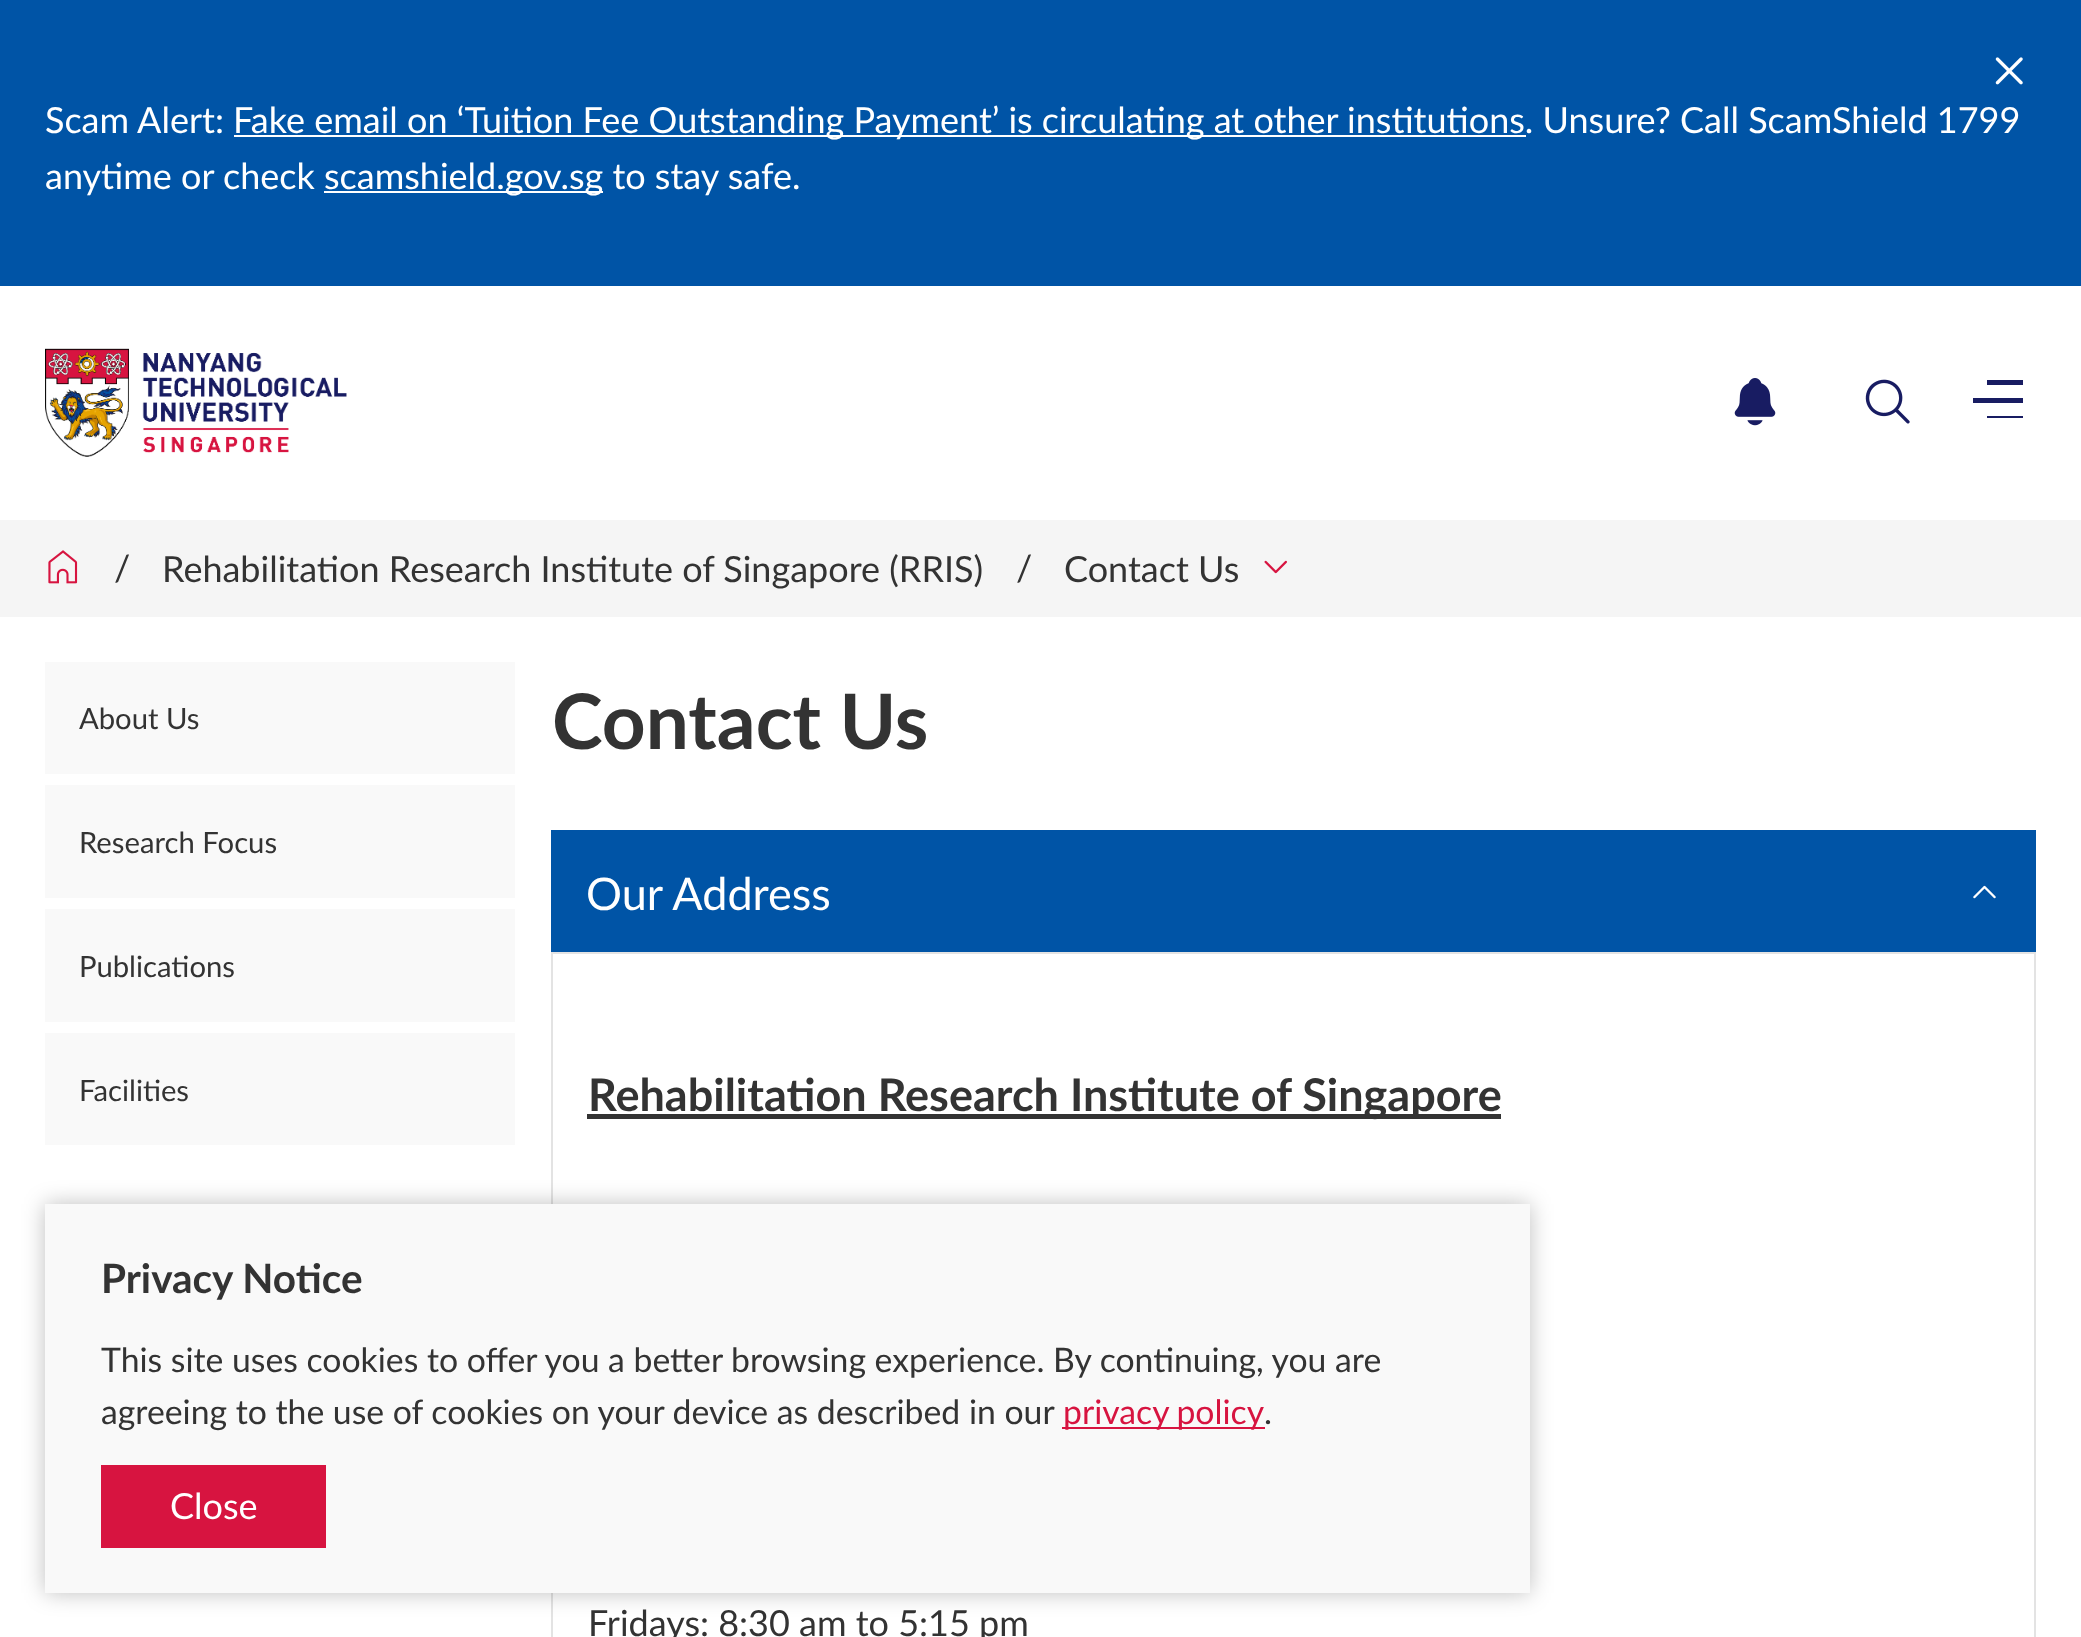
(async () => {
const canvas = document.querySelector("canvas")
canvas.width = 2081
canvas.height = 1637
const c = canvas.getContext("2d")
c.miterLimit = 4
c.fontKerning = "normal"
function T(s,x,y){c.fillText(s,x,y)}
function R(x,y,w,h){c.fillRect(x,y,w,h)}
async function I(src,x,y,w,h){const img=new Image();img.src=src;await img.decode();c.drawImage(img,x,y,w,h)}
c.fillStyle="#fff"
R(0,0,2081,1637)
c.fillStyle="#0054a6"
R(0,0,2081,286)
await I("1.png",1995,57,28,28)
c.font="36px Lato"
c.fillStyle="#fff"
T("Scam Alert:",45,133)
R(234,135,1292,2)
T("Fake email on ‘Tuition Fee Outstanding Payment’ is circulating at other institutions. Unsure? Call ScamShield 1799",233,133)
T("anytime or check",45,189)
R(324,191,279,2)
T("scamshield.gov.sg to stay safe.",324,189)
await I("2.png",45,348,302,109)
await I("3.png",1734,378,42,48)
await I("4.png",1865,379,45,45)
c.fillStyle="#181c62"
R(1987,380,36,5)
R(1973,398,50,5)
R(1987,416,36,2)
c.fillStyle="#f5f5f5"
R(0,520,2081,97)
await I("5.png",48,550,30,34)
c.fillStyle="#333"
T("/",114,581)
T("Rehabilitation Research Institute of Singapore (RRIS)",162,582)
T("/",1016,581)
T("Contact Us",1064,582)
await I("6.png",1264,560,23,14)
c.fillStyle="#f9f9f9"
R(45,662,470,112)
c.font="29.25px Lato"
c.fillStyle="#333"
T("About Us",79,729)
c.fillStyle="#f9f9f9"
R(45,785,470,113)
c.fillStyle="#333"
T("Research Focus",79,853)
c.fillStyle="#f9f9f9"
R(45,909,470,113)
c.fillStyle="#333"
T("Publications",79,977)
c.fillStyle="#f9f9f9"
R(45,1033,470,112)
c.fillStyle="#333"
T("Facilities",79,1101)
c.font="bold 76.5px Lato"
T("Contact Us",552,749)
c.fillStyle="#0054a6"
R(551,830,1485,122)
c.font="45px Lato"
c.fillStyle="#fff"
T("Our Address",586,910)
await I("7.png",1973,885,23,14)
c.strokeStyle="#e3e3e3"
c.lineWidth=2
c.strokeRect(552,953,1483,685)
c.fillStyle="#333"
R(587,1114,914,5)
c.font="bold 45px Lato"
T("Rehabilitation Research Institute of Singapore",588,1111)
c.font="36px Lato"
T("Fridays: 8:30 am to 5:15 pm",588,1636)
c.fillStyle="#00000040"
c.filter="blur(11px)"
c.beginPath()
c.rect(45,1204,1485,389)
c.fill()
c.filter="none"
c.fillStyle="#f9f9f9"
R(45,1204,1485,389)
c.font="bold 40.5px Lato"
c.fillStyle="#333"
T("Privacy Notice",101,1293)
c.font="33.75px Lato"
T("This site uses cookies to offer you a better browsing experience. By continuing, you are",101,1372)
T("agreeing to the use of cookies on your device as described in our",101,1424)
c.fillStyle="#d71440"
R(1062,1427,203,2)
c.wordSpacing="-1px"
T("privacy policy",1063,1424)
c.wordSpacing="0px"
c.fillStyle="#333"
T(".",1264,1424)
c.fillStyle="#d71440"
R(101,1465,225,83)
c.font="36px Lato"
c.fillStyle="#fff"
T("Close",170,1519)
})()
